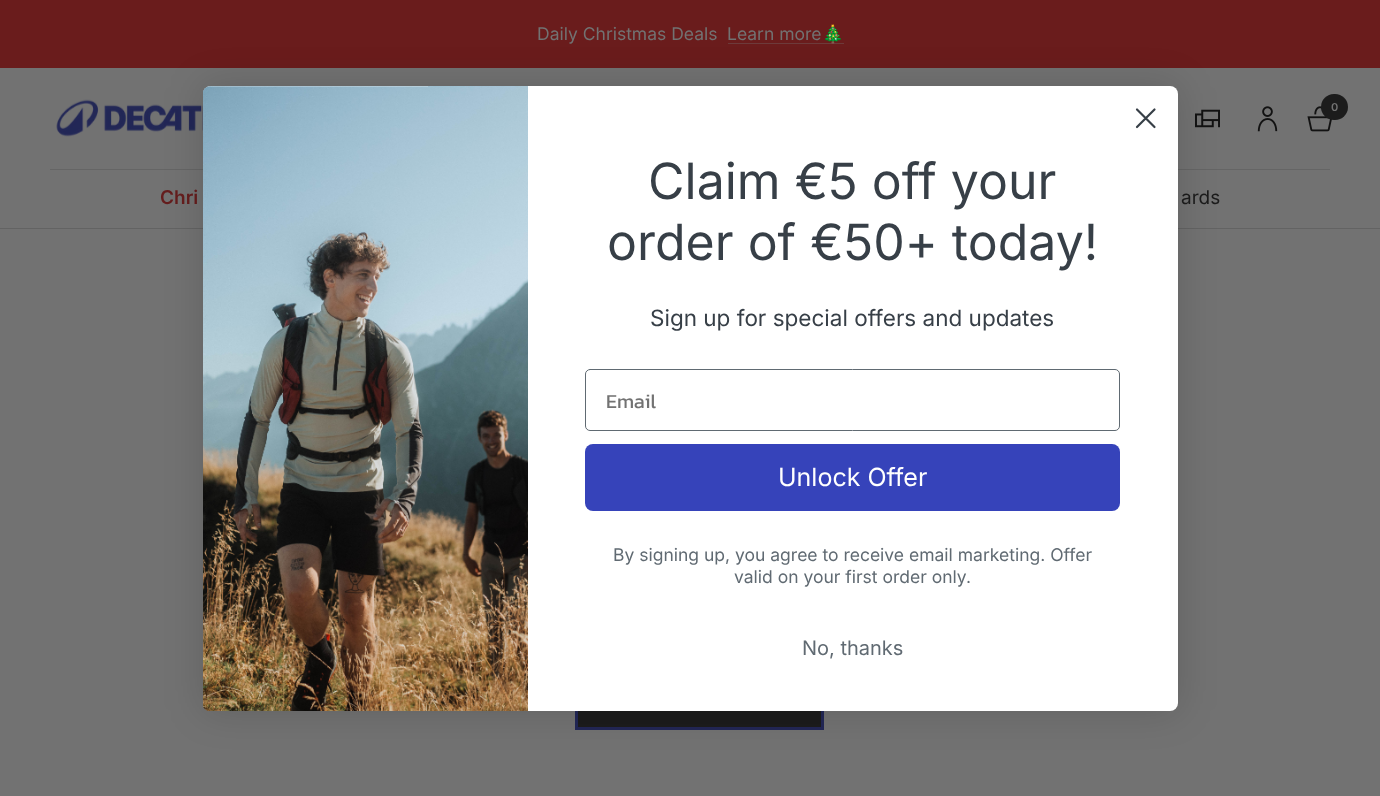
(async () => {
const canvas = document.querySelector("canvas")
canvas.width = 1380
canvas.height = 796
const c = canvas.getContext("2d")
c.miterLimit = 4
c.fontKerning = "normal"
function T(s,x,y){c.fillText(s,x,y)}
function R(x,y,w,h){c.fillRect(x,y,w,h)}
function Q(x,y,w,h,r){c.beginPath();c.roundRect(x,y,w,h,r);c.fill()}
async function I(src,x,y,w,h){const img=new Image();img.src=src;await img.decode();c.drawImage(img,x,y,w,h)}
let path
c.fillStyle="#727272"
R(0,0,1380,796)
c.fillStyle="#6a1c1c"
R(0,0,1380,68)
c.font="17.5px Inter"
c.fillStyle="#727272"
T("Daily Christmas Deals",537,40)
T("Learn more",727,40)
c.fillStyle="#6d3a3a"
R(728,43,116,1)
c.font="17.5px Noto Color Emoji"
c.fillStyle="#727272"
T("🎄",822,40)
c.fillStyle="#636363"
R(0,228,1380,1)
await I("1.png",56,99,147,38)
await I("2.png",1195,109,25,19)
await I("3.png",1257,106,21,26)
await I("4.png",1307,106,25,26)
c.fillStyle="#1c1c1c"
Q(1321,94,27,26,13)
c.font="600 11px Inter"
c.fillStyle="#727272"
T("0",1331,111)
c.fillStyle="#656565"
R(50,169,1280,1)
c.font="600 19px Inter"
c.fillStyle="#651d1d"
T("Chri",160,204)
c.font="19px Inter"
c.fillStyle="#1c1c1c"
T("ards",1181,204)
R(578,711,243,16)
c.strokeStyle="#222756"
c.lineWidth=3
c.strokeRect(576.5,661.5,246,67)
c.fillStyle="#00000026"
c.filter="blur(19px)"
c.beginPath()
c.roundRect(203,86,975,625,8)
c.fill()
c.filter="none"
c.fillStyle="#fff"
Q(203,86,975,625,8)
path = new Path2D("M1137 109.5l17.5 17.5m-17.5 0l17.5-17.5z")
c.strokeStyle="#373f47"
c.lineWidth=2.2
c.lineCap="round"
c.lineJoin="round"
c.stroke(path)
await I("5.png",203,86,325,625)
c.font="50px Inter"
c.fillStyle="#373f47"
T("Claim €5 off your",648,199)
T("order of €50+ today!",607,260)
c.font="22.5px Inter"
T("Sign up for special offers and updates",650,326)
c.beginPath()
c.roundRect(585.5,369.5,534,61,4.5)
c.strokeStyle="#606a72"
c.lineWidth=1
c.lineJoin="miter"
c.stroke()
c.font="20px Kanit"
c.fillStyle="#727272"
T("Email",606,408)
c.fillStyle="#3643ba"
Q(585,444,535,67,8)
c.font="25px Inter"
c.fillStyle="#fff"
T("Unlock Offer",778,486)
c.font="17.5px Inter"
c.fillStyle="#606a72"
T("By signing up, you agree to receive email marketing. Offer",613,561)
T("valid on your first order only.",734,583)
c.font="20px Inter"
T("No, thanks",802,655)
})()
